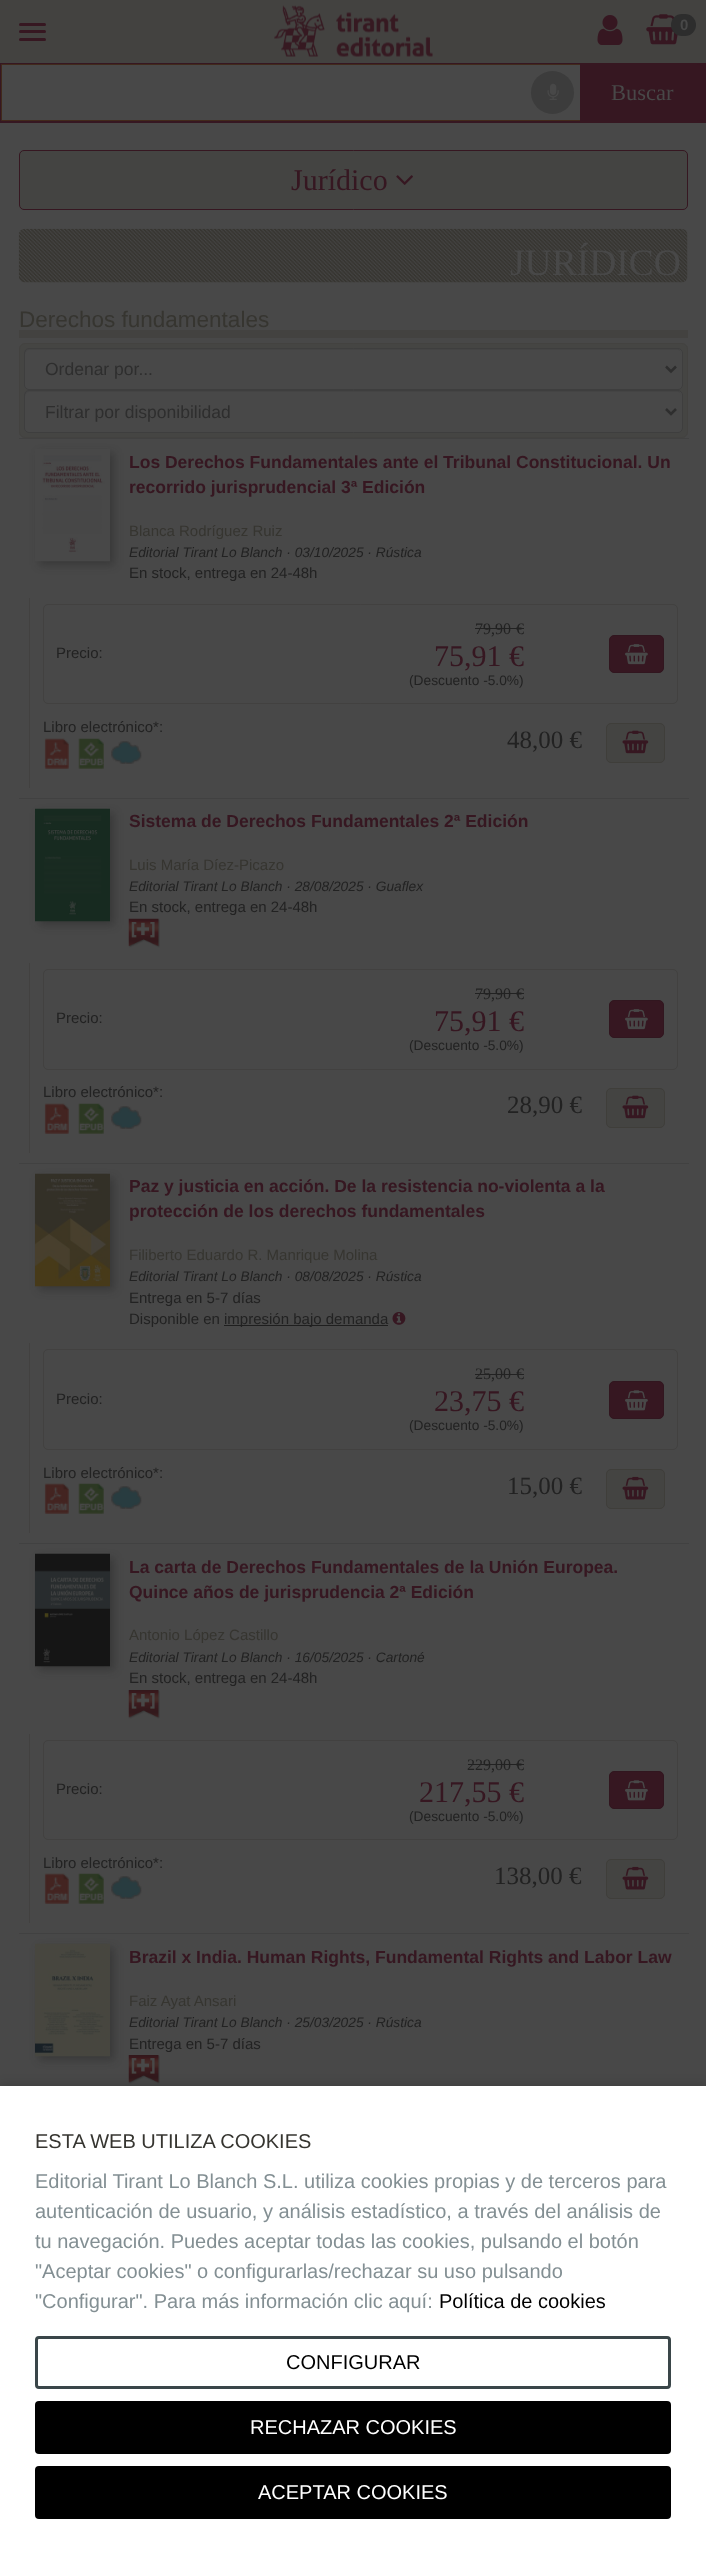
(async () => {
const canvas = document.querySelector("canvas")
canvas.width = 706
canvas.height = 2558
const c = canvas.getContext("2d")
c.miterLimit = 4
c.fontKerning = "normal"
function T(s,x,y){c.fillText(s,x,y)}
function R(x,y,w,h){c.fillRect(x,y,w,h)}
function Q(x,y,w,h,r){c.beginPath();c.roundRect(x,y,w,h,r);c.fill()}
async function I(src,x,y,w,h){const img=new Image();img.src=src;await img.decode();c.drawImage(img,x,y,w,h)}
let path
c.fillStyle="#484848"
R(0,0,706,2558)
c.fillStyle="#434240"
R(0,0,706,63)
await I("1.png",597,15,26,30)
await I("2.png",646,14,32,31)
c.fillStyle="#2d2d2d"
Q(671,14,25,22,11)
c.font="bold 15px Liberation Sans"
c.fillStyle="#484848"
T("0",680,30)
c.fillStyle="#361721"
Q(19,23,27,3,1.5)
Q(19,30,27,3,1.5)
Q(19,38,27,3,1.5)
await I("3.png",274,5,159,52)
R(0,63,706,60)
c.fillStyle="#484848"
c.beginPath()
c.rect(1.5,64.5,579,56)
c.fill()
c.strokeStyle="#41291b"
c.stroke()
c.fillStyle="#3c3c3c"
c.beginPath()
c.arc(552.5,92.5,21.5,0,7)
c.fill()
await I("4.png",547,83,12,17)
c.fillStyle="#361721"
c.beginPath()
c.roundRect(580,64,125,57,[0,8,8,0])
c.fill()
c.font="22.5px Liberation Serif"
c.fillStyle="#484848"
T("Buscar",611,100)
c.fillStyle="#444442"
c.beginPath()
c.roundRect(19.5,150.5,668,59,4.5)
c.fill()
c.strokeStyle="#361721"
c.stroke()
c.font="30px Liberation Serif"
c.fillStyle="#361721"
T("Jurídico",291,190)
await I("5.png",396,175,17,10)
await I("6.png",18,228,670,55)
c.font="37.5px Liberation Serif"
c.fillStyle="#484848"
T("JURÍDICO",510,275)
c.fillStyle="#434240"
R(19,330,669,8)
c.font="22.5px Liberation Sans"
c.fillStyle="#363530"
T("Derechos fundamentales",19,327)
c.fillStyle="#454543"
c.beginPath()
c.roundRect(19.5,343.5,668,94,5.5)
c.fill()
c.strokeStyle="#434240"
c.stroke()
c.fillStyle="#484848"
Q(24,348,659,42,5)
c.fillStyle="#444"
path = new Path2D("M29 350h649c2 0 3 2 3 4c0-3-1-5-4-5h-648l-3 1l-1 1v3c0-2 2-4 4-4z")
c.fill(path)
c.beginPath()
c.roundRect(24.5,348.5,658,41,4.5)
c.strokeStyle="#3e3e3e"
c.stroke()
path = new Path2D("M666 366.5l5 5l5-5")
c.strokeStyle="#2e2e2e"
c.lineWidth=2.5
c.stroke(path)
c.font="17.5px Liberation Sans"
c.fillStyle="#2e2e2e"
T("Ordenar por...",45,375)
c.fillStyle="#484848"
Q(24,390,659,43,5)
c.fillStyle="#444"
path = new Path2D("M29 392h649c2 0 3 2 3 4c0-3-1-5-4-5h-648l-3 1l-1 1v3c0-2 2-4 4-4z")
c.fill(path)
c.beginPath()
c.roundRect(24.5,390.5,658,42,4.5)
c.strokeStyle="#3e3e3e"
c.lineWidth=1
c.stroke()
path = new Path2D("M666 409l5 5l5-5")
c.strokeStyle="#2e2e2e"
c.lineWidth=2.5
c.stroke(path)
c.fillStyle="#2e2e2e"
T("Filtrar por disponibilidad",45,418)
c.fillStyle="#414141"
R(19,438,670,1)
c.save()
path = new Path2D("M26 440h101v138h-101zm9 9h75v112h-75z")
c.clip(path,"evenodd")
c.fillStyle="#1515154d"
c.filter="blur(4px)"
c.beginPath()
c.rect(39,453,75,112)
c.fill()
c.filter="none"
c.restore()
await I("7.png",37,455,73,107)
c.font="bold 17.5px Liberation Sans"
c.fillStyle="#361721"
T("Los Derechos Fundamentales ante el Tribunal Constitucional. Un",129,468)
T("recorrido jurisprudencial 3ª Edición",129,493)
c.font="15px Liberation Sans"
c.fillStyle="#363530"
T("Blanca Rodríguez Ruiz",129,536)
c.font="italic 13.75px Liberation Sans"
c.fillStyle="#222"
T("Editorial Tirant Lo Blanch · 03/10/2025 · Rústica",129,557)
c.font="15px Liberation Sans"
T("En stock, entrega en 24-48h",129,578)
c.fillStyle="#424140"
R(29,598,1,190)
c.beginPath()
c.roundRect(43.5,604.5,634,99,4.5)
c.strokeStyle="#424140"
c.lineWidth=1
c.stroke()
c.fillStyle="#222"
T("Precio:",56,658)
c.font="16px Liberation Serif"
T("79,90",475,634)
R(475,628,41,1)
T("€",516,634)
R(516,628,8,1)
c.font="30px Liberation Serif"
c.fillStyle="#361721"
T("75,91 €",434,666)
c.font="13.75px Liberation Sans"
c.fillStyle="#222"
T("(Descuento -5.0%)",409,685)
c.fillStyle="#361721"
c.beginPath()
c.roundRect(609.5,635.5,54,37,4.5)
c.fill()
c.strokeStyle="#31161f"
c.stroke()
await I("8.png",625,644,23,21)
c.font="15px Liberation Sans"
c.fillStyle="#222"
T("Libro electrónico*:",43,732)
await I("9.png",44,738,25,31)
await I("10.png",78,738,26,31)
await I("11.png",111,741,31,23)
c.font="25px Liberation Serif"
T("48,00 €",507,748)
c.fillStyle="#444442"
c.beginPath()
c.roundRect(606.5,723.5,58,39,4.5)
c.fill()
c.strokeStyle="#3f3e3a"
c.stroke()
await I("12.png",622,730,27,24)
c.fillStyle="#414141"
R(19,798,670,1)
c.fillStyle="#1515154d"
c.filter="blur(4px)"
c.beginPath()
c.rect(39,813,75,112)
c.fill()
c.filter="none"
await I("13.png",35,808,75,114)
c.font="bold 17.5px Liberation Sans"
c.fillStyle="#361721"
T("Sistema de Derechos Fundamentales 2ª Edición",129,827)
c.font="15px Liberation Sans"
c.fillStyle="#363530"
T("Luis María Díez-Picazo",129,870)
c.font="italic 13.75px Liberation Sans"
c.fillStyle="#222"
T("Editorial Tirant Lo Blanch · 28/08/2025 · Guaflex",129,891)
c.font="15px Liberation Sans"
T("En stock, entrega en 24-48h",129,912)
await I("14.png",128,918,32,30)
c.fillStyle="#424140"
R(29,963,1,190)
c.beginPath()
c.roundRect(43.5,969.5,634,100,4.5)
c.strokeStyle="#424140"
c.stroke()
c.fillStyle="#222"
T("Precio:",56,1023)
c.font="16px Liberation Serif"
T("79,90",475,999)
R(475,993,41,1)
T("€",516,999)
R(516,993,8,1)
c.font="30px Liberation Serif"
c.fillStyle="#361721"
T("75,91 €",434,1031)
c.font="13.75px Liberation Sans"
c.fillStyle="#222"
T("(Descuento -5.0%)",409,1050)
c.fillStyle="#361721"
c.beginPath()
c.roundRect(609.5,1000.5,54,37,4.5)
c.fill()
c.strokeStyle="#31161f"
c.stroke()
await I("8.png",625,1009,23,21)
c.font="15px Liberation Sans"
c.fillStyle="#222"
T("Libro electrónico*:",43,1097)
await I("9.png",44,1103,25,31)
await I("10.png",78,1103,26,31)
await I("11.png",111,1106,31,23)
c.font="25px Liberation Serif"
T("28,90 €",507,1113)
c.fillStyle="#444442"
c.beginPath()
c.roundRect(606.5,1088.5,58,39,4.5)
c.fill()
c.strokeStyle="#3f3e3a"
c.stroke()
await I("12.png",622,1095,27,24)
c.fillStyle="#414141"
R(19,1163,670,1)
c.fillStyle="#1515154d"
c.filter="blur(4px)"
c.beginPath()
c.rect(39,1178,75,112)
c.fill()
c.filter="none"
await I("15.png",35,1173,75,114)
c.font="bold 17.5px Liberation Sans"
c.fillStyle="#361721"
T("Paz y justicia en acción. De la resistencia no-violenta a la",129,1192)
T("protección de los derechos fundamentales",129,1217)
c.font="15px Liberation Sans"
c.fillStyle="#363530"
T("Filiberto Eduardo R. Manrique Molina",129,1260)
c.font="italic 13.75px Liberation Sans"
c.fillStyle="#222"
T("Editorial Tirant Lo Blanch · 08/08/2025 · Rústica",129,1281)
c.font="15px Liberation Sans"
T("Entrega en 5-7 días",129,1303)
T("Disponible en",129,1324)
c.fillStyle="#1f1f1f"
R(224,1325,164,1)
c.fillStyle="#222"
T("impresión bajo demanda",224,1324)
await I("16.png",392,1312,14,13)
c.fillStyle="#424140"
R(29,1343,1,190)
c.beginPath()
c.roundRect(43.5,1349.5,634,100,4.5)
c.strokeStyle="#424140"
c.stroke()
c.fillStyle="#222"
T("Precio:",56,1404)
c.font="16px Liberation Serif"
T("25,00",475,1379)
R(475,1374,41,1)
T("€",516,1379)
R(516,1374,8,1)
c.font="30px Liberation Serif"
c.fillStyle="#361721"
T("23,75 €",434,1411)
c.font="13.75px Liberation Sans"
c.fillStyle="#222"
T("(Descuento -5.0%)",409,1430)
c.fillStyle="#361721"
c.beginPath()
c.roundRect(609.5,1381.5,54,37,4.5)
c.fill()
c.strokeStyle="#31161f"
c.stroke()
await I("17.png",625,1390,23,21)
c.font="15px Liberation Sans"
c.fillStyle="#222"
T("Libro electrónico*:",43,1478)
await I("9.png",44,1483,25,31)
await I("10.png",78,1483,26,31)
await I("11.png",111,1486,31,23)
c.font="25px Liberation Serif"
T("15,00 €",507,1494)
c.fillStyle="#444442"
c.beginPath()
c.roundRect(606.5,1469.5,58,39,4.5)
c.fill()
c.strokeStyle="#3f3e3a"
c.stroke()
await I("18.png",622,1476,27,24)
c.fillStyle="#414141"
R(19,1543,670,1)
c.fillStyle="#1515154d"
c.filter="blur(4px)"
c.beginPath()
c.rect(39,1558,75,112)
c.fill()
c.filter="none"
await I("19.png",35,1553,75,114)
c.font="bold 17.5px Liberation Sans"
c.fillStyle="#361721"
T("La carta de Derechos Fundamentales de la Unión Europea.",129,1573)
T("Quince años de jurisprudencia 2ª Edición",129,1598)
c.font="15px Liberation Sans"
c.fillStyle="#363530"
T("Antonio López Castillo",129,1640)
c.font="italic 13.75px Liberation Sans"
c.fillStyle="#222"
T("Editorial Tirant Lo Blanch · 16/05/2025 · Cartoné",129,1662)
c.font="15px Liberation Sans"
T("En stock, entrega en 24-48h",129,1683)
await I("20.png",128,1690,32,29)
c.fillStyle="#424140"
R(29,1734,1,189)
c.beginPath()
c.roundRect(43.5,1740.5,634,99,4.5)
c.strokeStyle="#424140"
c.stroke()
c.fillStyle="#222"
T("Precio:",56,1794)
c.font="16px Liberation Serif"
T("229,00",467,1770)
R(468,1764,48,1)
T("€",516,1770)
R(516,1764,8,1)
c.font="30px Liberation Serif"
c.fillStyle="#361721"
T("217,55 €",419,1802)
c.font="13.75px Liberation Sans"
c.fillStyle="#222"
T("(Descuento -5.0%)",409,1821)
c.fillStyle="#361721"
c.beginPath()
c.roundRect(609.5,1771.5,54,37,4.5)
c.fill()
c.strokeStyle="#31161f"
c.stroke()
await I("17.png",625,1780,23,21)
c.font="15px Liberation Sans"
c.fillStyle="#222"
T("Libro electrónico*:",43,1868)
await I("9.png",44,1873,25,31)
await I("10.png",78,1873,26,31)
await I("11.png",111,1876,31,23)
c.font="25px Liberation Serif"
T("138,00 €",494,1884)
c.fillStyle="#444442"
c.beginPath()
c.roundRect(606.5,1859.5,58,39,4.5)
c.fill()
c.strokeStyle="#3f3e3a"
c.stroke()
await I("18.png",622,1866,27,24)
c.fillStyle="#414141"
R(19,1933,670,1)
c.fillStyle="#1515154d"
c.filter="blur(4px)"
c.beginPath()
c.rect(39,1948,75,112)
c.fill()
c.filter="none"
await I("21.png",35,1943,75,114)
c.font="bold 17.5px Liberation Sans"
c.fillStyle="#361721"
T("Brazil x India. Human Rights, Fundamental Rights and Labor Law",129,1963)
c.font="15px Liberation Sans"
c.fillStyle="#363530"
T("Faiz Ayat Ansari",129,2006)
c.font="italic 13.75px Liberation Sans"
c.fillStyle="#222"
T("Editorial Tirant Lo Blanch · 25/03/2025 · Rústica",129,2027)
c.font="15px Liberation Sans"
T("Entrega en 5-7 días",129,2049)
await I("20.png",128,2055,32,29)
c.fillStyle="#00000033"
c.filter="blur(6px)"
c.beginPath()
c.rect(0,2086,706,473)
c.fill()
c.filter="none"
c.fillStyle="#fff"
R(0,2086,706,472)
c.font="20px Liberation Sans"
c.fillStyle="#363530"
T("ESTA WEB UTILIZA COOKIES",35,2148)
c.fillStyle="#838f93"
T("Editorial Tirant Lo Blanch S.L. utiliza cookies propias y de terceros para",35,2188)
T("autenticación de usuario, y análisis estadístico, a través del análisis de",35,2218)
T("tu navegación. Puedes aceptar todas las cookies, pulsando el botón",35,2248)
T("\"Aceptar cookies\" o configurarlas/rechazar su uso pulsando",35,2278)
T("\"Configurar\". Para más información clic aquí:",35,2308)
c.fillStyle="#000"
T("Política de cookies",439,2308)
c.beginPath()
c.roundRect(36.5,2337.5,633,50,2.5)
c.strokeStyle="#3a4649"
c.lineWidth=3
c.stroke()
T("CONFIGURAR",286,2369)
Q(35,2401,636,53,4)
c.fillStyle="#fff"
T("RECHAZAR COOKIES",250,2434)
c.fillStyle="#000"
Q(35,2466,636,53,4)
c.fillStyle="#fff"
T("ACEPTAR COOKIES",258,2499)
})()
